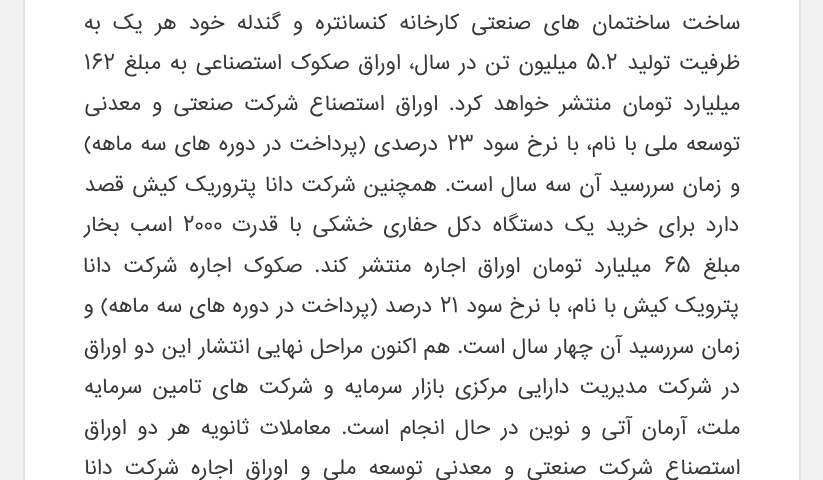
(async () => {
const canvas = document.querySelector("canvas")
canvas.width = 823
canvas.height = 480
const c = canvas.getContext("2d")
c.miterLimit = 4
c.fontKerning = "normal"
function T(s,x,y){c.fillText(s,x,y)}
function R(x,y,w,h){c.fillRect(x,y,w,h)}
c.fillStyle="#f2f2f2"
R(0,0,823,480)
c.fillStyle="#fff"
c.beginPath()
c.rect(24,-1,776,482)
c.fill()
c.strokeStyle="#e0e0e0"
c.lineWidth=2
c.stroke()
c.wordSpacing="5.25px"
c.direction="rtl"
c.font="19.5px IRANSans"
c.fillStyle="#393939"
T("ساخت ساختمان های صنعتی کارخانه کنسانتره و گندله خود هر یک به",740,29)
c.wordSpacing="2px"
T("ظرفیت تولید",740,69)
c.wordSpacing="0px"
c.direction="ltr"
T("5.2",586,69)
c.wordSpacing="1.75px"
c.direction="rtl"
T("میلیون تن در سال، اوراق صکوک استصناعی به مبلغ",577,69)
c.wordSpacing="0px"
c.direction="ltr"
T("162",84,69)
c.wordSpacing="4px"
c.direction="rtl"
T("میلیارد تومان منتشر خواهد کرد. اوراق استصناع شرکت صنعتی و معدنی",740,110)
c.wordSpacing="1px"
T("توسعه ملی با نام، با نرخ سود",740,150)
c.wordSpacing="0px"
c.direction="ltr"
T("23",447,150)
c.wordSpacing="1px"
c.direction="rtl"
T("درصدی (پرداخت در دوره های سه ماهه)",438,150)
c.wordSpacing="1.25px"
T("و زمان سررسید آن سه سال است. همچنین شرکت دانا پتروریک کیش قصد",740,191)
c.wordSpacing="3.75px"
T("دارد برای خرید یک دستگاه دکل حفاری خشکی با قدرت",739,231)
c.wordSpacing="0px"
c.direction="ltr"
T("2000",183,231)
c.wordSpacing="3.75px"
c.direction="rtl"
T("اسب بخار",172,231)
c.wordSpacing="0px"
T("مبلغ",740,272)
c.direction="ltr"
T("65",664,272)
c.wordSpacing="5px"
c.direction="rtl"
T("میلیارد تومان اوراق اجاره منتشر کند. صکوک اجاره شرکت دانا",651,272)
c.wordSpacing="0px"
T("پترویک کیش با نام، با نرخ سود",739,312)
c.direction="ltr"
T("21",440,312)
c.direction="rtl"
T("درصد (پرداخت در دوره های سه ماهه) و",432,312)
c.wordSpacing="0.2px"
T("زمان سررسید آن چهار سال است. هم اکنون مراحل نهایی انتشار این دو اوراق",740,353)
c.wordSpacing="3.5px"
T("در شرکت مدیریت دارایی مرکزی بازار سرمایه و شرکت های تامین سرمایه",740,393)
T("ملت، آرمان آتی و نوین در حال انجام است. معاملات ثانویه هر دو اوراق",740,434)
c.wordSpacing="5.25px"
T("استصناع شرکت صنعتی و معدنی توسعه ملی و اوراق اجاره شرکت دانا",740,474)
})()
